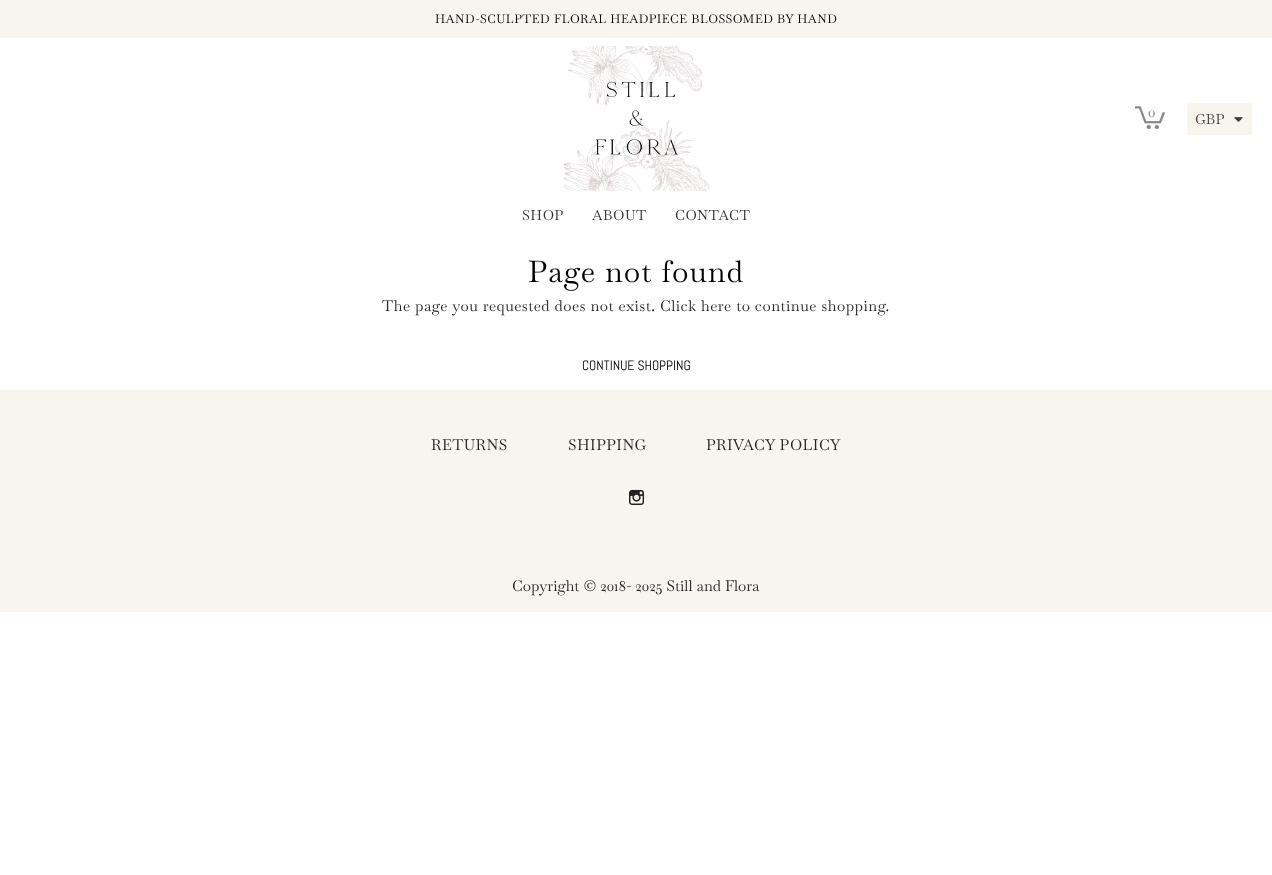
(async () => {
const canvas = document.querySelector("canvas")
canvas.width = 1272
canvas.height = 875
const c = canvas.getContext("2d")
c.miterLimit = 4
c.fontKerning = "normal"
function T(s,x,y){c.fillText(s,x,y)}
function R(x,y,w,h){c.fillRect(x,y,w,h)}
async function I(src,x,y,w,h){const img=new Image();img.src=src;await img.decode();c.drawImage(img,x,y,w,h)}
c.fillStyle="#fff"
R(0,0,1272,875)
c.fillStyle="#f8f4ee"
R(0,0,1272,38)
c.letterSpacing="0.5px"
c.font="12px Baskervville"
c.fillStyle="#000"
T("HAND-SCULPTED FLORAL HEADPIECE BLOSSOMED BY HAND",435,23)
await I("1.png",564,46,145,145)
await I("2.png",1135,106,30,23)
c.letterSpacing="0px"
c.font="15px Baskervville"
c.fillStyle="#878787"
T("0",1148,117)
c.letterSpacing="0.5px"
c.font="14px Baskervville"
c.fillStyle="#333"
T("SHOP",522,220)
T("ABOUT",592,220)
T("CONTACT",675,220)
c.letterSpacing="1px"
c.font="30px Baskervville"
c.fillStyle="#000"
T("Page not found",528,282)
c.letterSpacing="0.5px"
c.font="15px Baskervville"
c.fillStyle="#222"
T("The page you requested does not exist. Click here to continue shopping.",382,311)
c.letterSpacing="0px"
c.font="13.5px Abel"
c.fillStyle="#000"
T("CONTINUE SHOPPING",582,370)
c.fillStyle="#f8f4ee"
R(0,390,1272,222)
c.letterSpacing="0.5px"
c.font="15px Baskervville"
c.fillStyle="#222"
T("RETURNS",431,450)
T("SHIPPING",568,450)
T("PRIVACY POLICY",706,450)
await I("3.png",629,489,16,16)
c.letterSpacing="0px"
T("Copyright © 2018- 2025 Still and Flora",512,591)
c.fillStyle="#f8f4ee"
R(1187,103,65,32)
c.font="14px Baskervville"
c.fillStyle="#404040"
T("GBP",1195,124)
await I("4.png",1234,117,9,5)
})()
